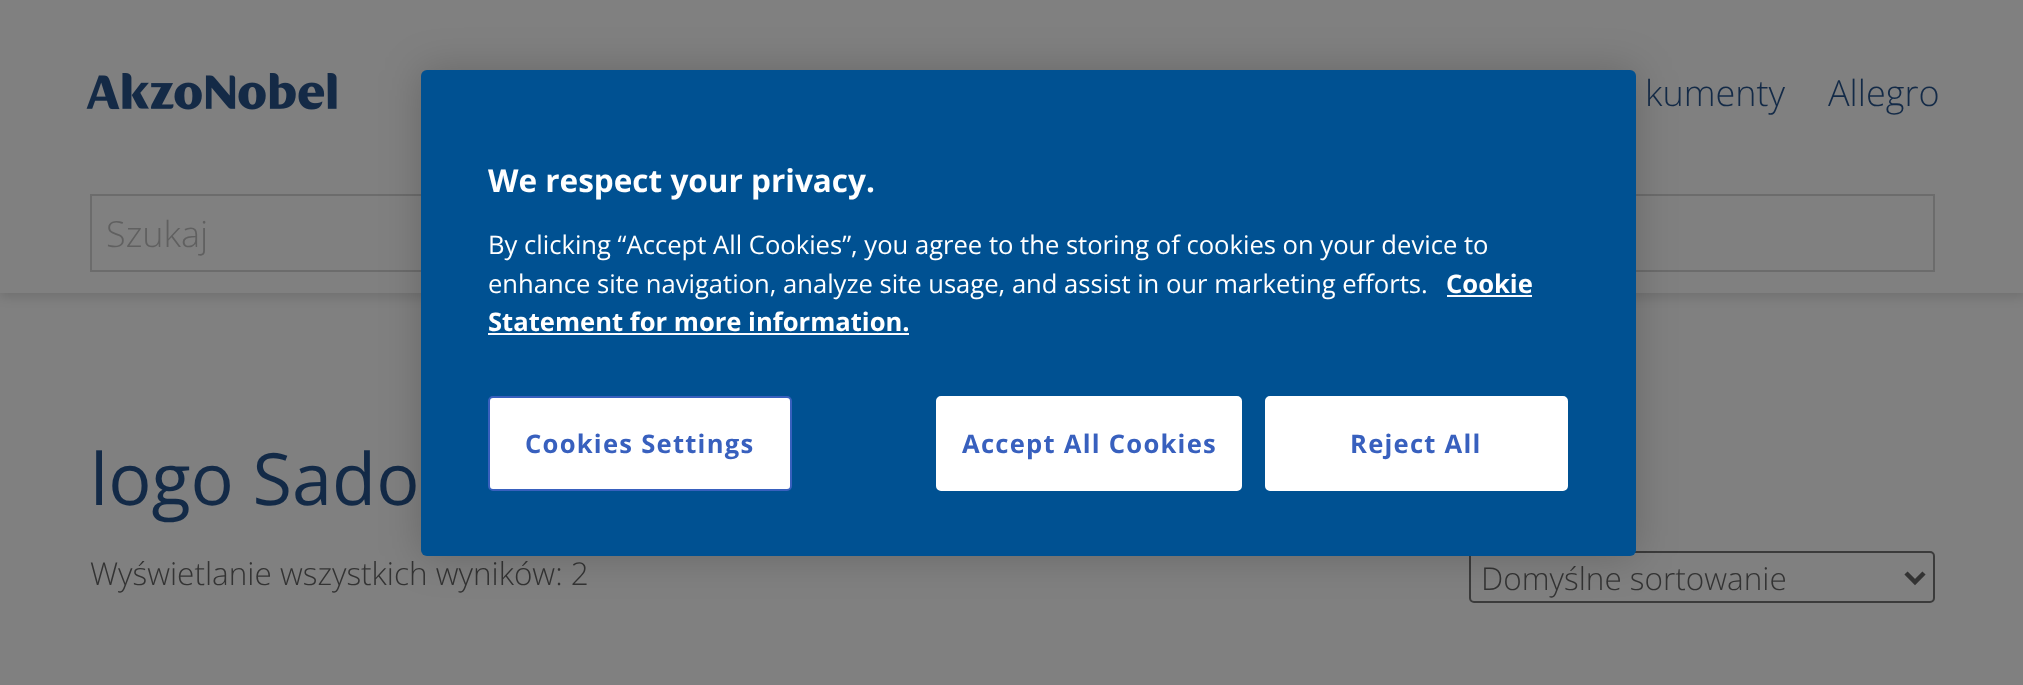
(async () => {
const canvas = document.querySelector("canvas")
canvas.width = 2023
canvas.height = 685
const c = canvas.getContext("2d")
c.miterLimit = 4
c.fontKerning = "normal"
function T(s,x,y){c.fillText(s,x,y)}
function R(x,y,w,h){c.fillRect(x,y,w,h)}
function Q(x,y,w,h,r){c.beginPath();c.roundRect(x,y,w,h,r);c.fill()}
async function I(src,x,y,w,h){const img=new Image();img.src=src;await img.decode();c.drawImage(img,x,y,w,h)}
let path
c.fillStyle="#808080"
R(0,0,2023,685)
c.fillStyle="#00000021"
c.filter="blur(5.5px)"
c.beginPath()
c.rect(0,5,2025,292)
c.fill()
c.filter="none"
c.fillStyle="#808080"
R(0,0,2023,293)
await I("1.png",86,73,251,37)
c.font="300 36px Open Sans"
c.fillStyle="#132a47"
T("kumenty",1645,106)
T("Allegro",1828,106)
c.strokeStyle="#6c6c6c"
c.lineWidth=2
c.strokeRect(91,195,1843,76)
c.fillStyle="#606060"
T("Szukaj",106,247)
c.font="72px Open Sans"
c.fillStyle="#132a47"
T("logo Sado",90,505)
c.font="300 31.5px Open Sans"
c.fillStyle="#333"
T("Wyświetlanie wszystkich wyników: 2",90,585)
c.beginPath()
c.roundRect(1470,552,464,50,4)
c.strokeStyle="#3b3b3b"
c.stroke()
path = new Path2D("M1906 573l9 9l9-9")
c.strokeStyle="#333"
c.lineWidth=4.5
c.stroke(path)
T("Domyślne sortowanie",1481,590)
c.fillStyle="#00000033"
c.filter="blur(20px)"
c.beginPath()
c.roundRect(421,70,1215,486,6)
c.fill()
c.filter="none"
c.fillStyle="#005192"
Q(421,70,1215,486,6)
c.font="bold 31.5px Open Sans"
c.fillStyle="#fff"
T("We respect your privacy.",488,192)
c.font="25.6px Open Sans"
T("By clicking “Accept All Cookies”, you agree to the storing of cookies on your device to",488,254)
T("enhance site navigation, analyze site usage, and assist in our marketing efforts.",488,293)
c.font="bold 25.6px Open Sans"
T("Cookie",1446,293)
c.fillStyle="#fafbff"
R(1447,295,85,2)
c.fillStyle="#fff"
T("Statement for more information.",488,331)
c.fillStyle="#fafbff"
R(488,333,421,2)
c.fillStyle="#fff"
c.beginPath()
c.roundRect(489,397,302,93,4)
c.fill()
c.strokeStyle="#3860be"
c.lineWidth=2
c.stroke()
c.letterSpacing="1.25px"
c.fillStyle="#3860be"
T("Cookies Settings",525,453)
c.fillStyle="#fff"
c.beginPath()
c.roundRect(937,397,304,93,4)
c.fill()
c.strokeStyle="#fff"
c.stroke()
c.fillStyle="#3860be"
T("Accept All Cookies",962,453)
c.fillStyle="#fff"
c.beginPath()
c.roundRect(1266,397,301,93,4)
c.fill()
c.stroke()
c.fillStyle="#3860be"
T("Reject All",1350,453)
})()
